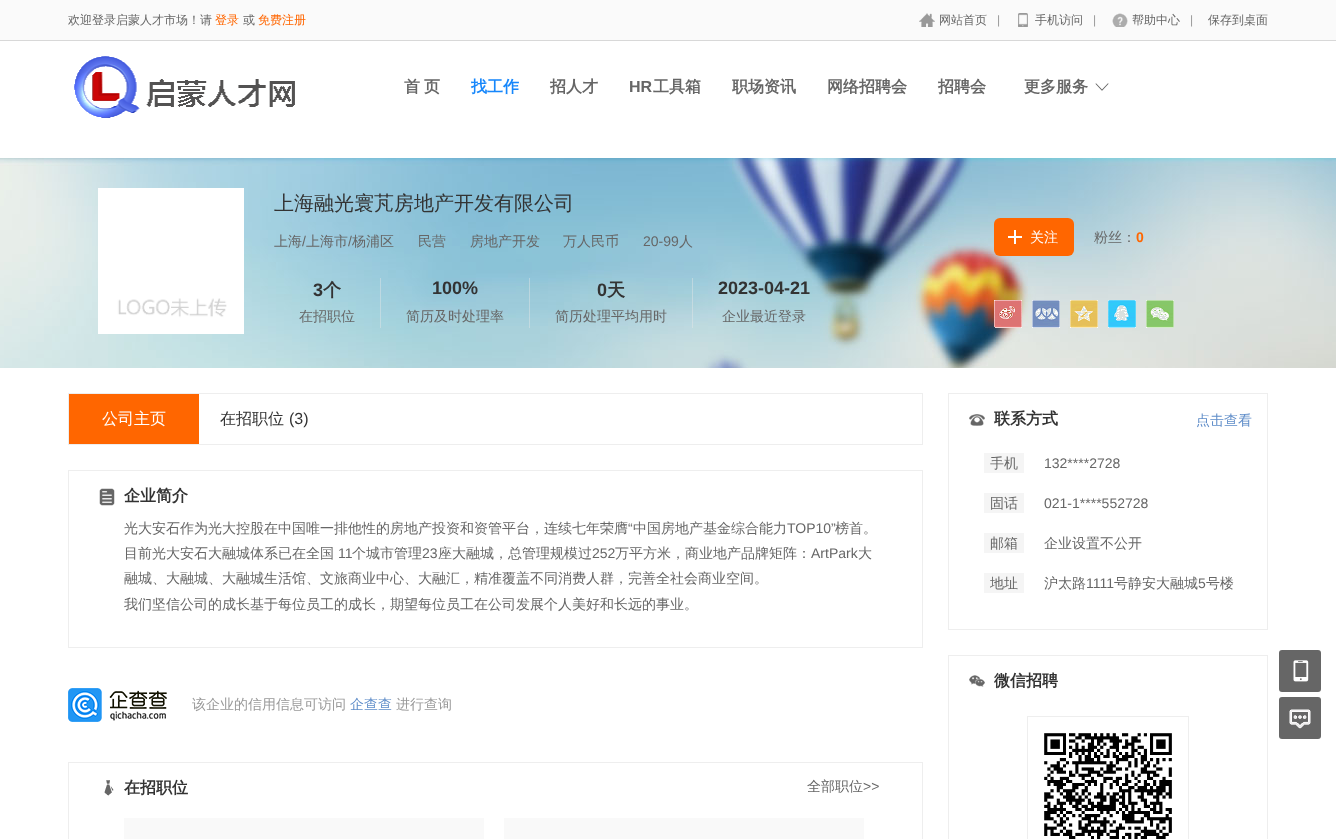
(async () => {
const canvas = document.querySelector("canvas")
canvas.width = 1336
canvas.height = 839
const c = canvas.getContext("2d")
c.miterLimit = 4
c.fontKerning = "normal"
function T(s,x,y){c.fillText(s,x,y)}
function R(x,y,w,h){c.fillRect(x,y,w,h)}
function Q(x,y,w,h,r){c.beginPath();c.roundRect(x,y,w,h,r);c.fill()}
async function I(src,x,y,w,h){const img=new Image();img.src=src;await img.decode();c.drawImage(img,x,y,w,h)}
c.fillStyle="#fff"
R(0,0,1336,839)
c.fillStyle="#fafafa"
R(0,0,1336,40)
c.font="500 12px WenQuanYi Zen Hei"
c.fillStyle="#666"
T("欢迎登录启蒙人才市场！请",68,24)
c.fillStyle="#f60"
T("登录",215,24)
c.fillStyle="#666"
T("或",243,24)
c.fillStyle="#f60"
T("免费注册",258,24)
await I("1.png",919,13,16,14)
c.fillStyle="#666"
T("网站首页",939,24)
c.font="12px Liberation Sans"
c.fillStyle="#999"
T("|",997,24)
await I("2.png",1018,13,10,14)
c.font="500 12px WenQuanYi Zen Hei"
c.fillStyle="#666"
T("手机访问",1035,24)
c.font="12px Liberation Sans"
c.fillStyle="#999"
T("|",1093,24)
await I("3.png",1112,13,16,14)
c.font="500 12px WenQuanYi Zen Hei"
c.fillStyle="#666"
T("帮助中心",1132,24)
c.font="12px Liberation Sans"
c.fillStyle="#999"
T("|",1190,24)
c.font="500 12px WenQuanYi Zen Hei"
c.fillStyle="#666"
T("保存到桌面",1208,24)
c.fillStyle="#d8d8d8"
R(0,40,1336,1)
await I("4.png",74,56,221,62)
c.font="bold 16px WenQuanYi Zen Hei"
c.fillStyle="#666"
T("首",404,92)
T("页",424,92)
c.fillStyle="#1787fb"
T("找工作",471,92)
c.fillStyle="#666"
T("招人才",550,92)
c.font="bold 16px Liberation Sans"
T("HR",629,92)
c.font="bold 16px WenQuanYi Zen Hei"
T("工具箱",653,92)
T("职场资讯",732,92)
T("网络招聘会",827,92)
T("招聘会",938,92)
await I("5.png",1095,83,14,8)
T("更多服务",1024,92)
await I("6.png",0,158,1336,210)
await I("7.png",98,188,146,146)
c.font="500 20px WenQuanYi Zen Hei"
c.fillStyle="#333"
T("上海融光寰芃房地产开发有限公司",274,210)
c.font="500 14px WenQuanYi Zen Hei"
c.fillStyle="#666"
T("上海",274,246)
c.font="14px Liberation Sans"
T("/",302,246)
c.font="500 14px WenQuanYi Zen Hei"
T("上海市",306,246)
c.font="14px Liberation Sans"
T("/",348,246)
c.font="500 14px WenQuanYi Zen Hei"
T("杨浦区",352,246)
T("民营",418,246)
T("房地产开发",470,246)
T("万人民币",563,246)
c.font="14px Liberation Sans"
T("20-99",643,246)
c.font="500 14px WenQuanYi Zen Hei"
T("人",679,246)
c.fillStyle="#f60"
Q(994,218,80,38,6)
await I("8.png",1008,230,14,14)
c.fillStyle="#fff"
T("关注",1030,242)
c.fillStyle="#666"
T("粉丝：",1094,242)
c.font="bold 14px Liberation Sans"
c.fillStyle="#f60"
T("0",1136,242)
c.fillStyle="#e8e8e86e"
R(380,278,1,50)
c.font="bold 18px Liberation Sans"
c.fillStyle="#333"
T("3",313,296)
c.font="bold 18px WenQuanYi Zen Hei"
T("个",323,296)
c.font="500 14px WenQuanYi Zen Hei"
c.fillStyle="#666"
T("在招职位",299,321)
c.fillStyle="#e8e8e86e"
R(529,278,1,50)
c.font="bold 18px Liberation Sans"
c.fillStyle="#333"
T("100%",432,294)
c.font="500 14px WenQuanYi Zen Hei"
c.fillStyle="#666"
T("简历及时处理率",406,321)
c.fillStyle="#e8e8e86e"
R(692,278,1,50)
c.font="bold 18px Liberation Sans"
c.fillStyle="#333"
T("0",597,296)
c.font="bold 18px WenQuanYi Zen Hei"
T("天",607,296)
c.font="500 14px WenQuanYi Zen Hei"
c.fillStyle="#666"
T("简历处理平均用时",555,321)
c.font="bold 18px Liberation Sans"
c.fillStyle="#333"
T("2023-04-21",718,294)
c.font="500 14px WenQuanYi Zen Hei"
c.fillStyle="#666"
T("企业最近登录",722,321)
await I("9.png",994,300,28,28)
await I("10.png",1032,300,28,28)
await I("11.png",1070,300,28,28)
await I("12.png",1108,300,28,28)
await I("13.png",1146,300,28,28)
c.strokeStyle="#eee"
c.strokeRect(68.5,393.5,854,51)
c.fillStyle="#f60"
R(69,394,130,50)
c.font="500 16px WenQuanYi Zen Hei"
c.fillStyle="#fff"
T("公司主页",102,424)
c.fillStyle="#333"
T("在招职位",220,424)
c.font="16px Liberation Sans"
T("(3)",289,424)
c.strokeRect(68.5,470.5,854,177)
await I("14.png",99,488,16,18)
c.font="bold 16px WenQuanYi Zen Hei"
T("企业简介",124,501)
c.font="500 14px WenQuanYi Zen Hei"
c.fillStyle="#666"
T("光大安石作为光大控股在中国唯一排他性的房地产投资和资管平台，连续七年荣膺",124,533)
c.font="14px Liberation Sans"
T("“",628,533)
c.font="500 14px WenQuanYi Zen Hei"
T("中国房地产基金综合能力",633,533)
c.font="14px Liberation Sans"
T("TOP10”",787,533)
c.font="500 14px WenQuanYi Zen Hei"
T("榜首。",835,533)
T("目前光大安石大融城体系已在全国",124,558)
c.font="14px Liberation Sans"
T("11",338,558)
c.font="500 14px WenQuanYi Zen Hei"
T("个城市管理",352,558)
c.font="14px Liberation Sans"
T("23",422,558)
c.font="500 14px WenQuanYi Zen Hei"
T("座大融城，总管理规模过",438,558)
c.font="14px Liberation Sans"
T("252",592,558)
c.font="500 14px WenQuanYi Zen Hei"
T("万平方米，商业地产品牌矩阵：",615,558)
c.font="14px Liberation Sans"
T("ArtPark",811,558)
c.font="500 14px WenQuanYi Zen Hei"
T("大",858,558)
T("融城、大融城、大融城生活馆、文旅商业中心、大融汇，精准覆盖不同消费人群，完善全社会商业空间。",124,583)
T("我们坚信公司的成长基于每位员工的成长，期望每位员工在公司发展个人美好和长远的事业。",124,609)
await I("15.png",68,688,99,34)
c.fillStyle="#999"
T("该企业的信用信息可访问",192,709)
c.fillStyle="#5f8dc9"
T("企查查",350,709)
c.fillStyle="#999"
T("进行查询",396,709)
c.strokeRect(68.5,762.5,854,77)
await I("16.png",104,780,10,16)
c.font="bold 16px WenQuanYi Zen Hei"
c.fillStyle="#333"
T("在招职位",124,793)
c.font="500 14px WenQuanYi Zen Hei"
c.fillStyle="#666"
T("全部职位",807,791)
c.font="14px Liberation Sans"
T(">>",863,791)
c.fillStyle="#f9f9f9"
R(124,818,360,21)
R(504,818,360,21)
c.strokeRect(948.5,393.5,319,236)
await I("17.png",969,414,16,12)
c.font="bold 16px WenQuanYi Zen Hei"
c.fillStyle="#333"
T("联系方式",994,424)
c.font="500 14px WenQuanYi Zen Hei"
c.fillStyle="#5f8dc9"
T("点击查看",1196,425)
c.fillStyle="#f5f5f5"
R(984,453,40,20)
c.fillStyle="#666"
T("手机",990,468)
c.font="14px Liberation Sans"
T("132****2728",1044,468)
c.fillStyle="#f5f5f5"
R(984,493,40,20)
c.font="500 14px WenQuanYi Zen Hei"
c.fillStyle="#666"
T("固话",990,508)
c.font="14px Liberation Sans"
T("021-1****552728",1044,508)
c.fillStyle="#f5f5f5"
R(984,533,40,20)
c.font="500 14px WenQuanYi Zen Hei"
c.fillStyle="#666"
T("邮箱",990,548)
T("企业设置不公开",1044,548)
c.fillStyle="#f5f5f5"
R(984,573,40,20)
c.fillStyle="#666"
T("地址",990,588)
T("沪太路",1044,588)
c.font="14px Liberation Sans"
T("1111",1086,588)
c.font="500 14px WenQuanYi Zen Hei"
T("号静安大融城",1114,588)
c.font="14px Liberation Sans"
T("5",1198,588)
c.font="500 14px WenQuanYi Zen Hei"
T("号楼",1206,588)
c.strokeRect(948.5,655.5,319,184)
await I("18.png",969,675,16,12)
c.font="bold 16px WenQuanYi Zen Hei"
c.fillStyle="#333"
T("微信招聘",994,686)
c.strokeRect(1027.5,716.5,161,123)
await I("19.png",1044,733,128,106)
await I("20.png",1279,650,42,42)
await I("21.png",1279,697,42,42)
})()
